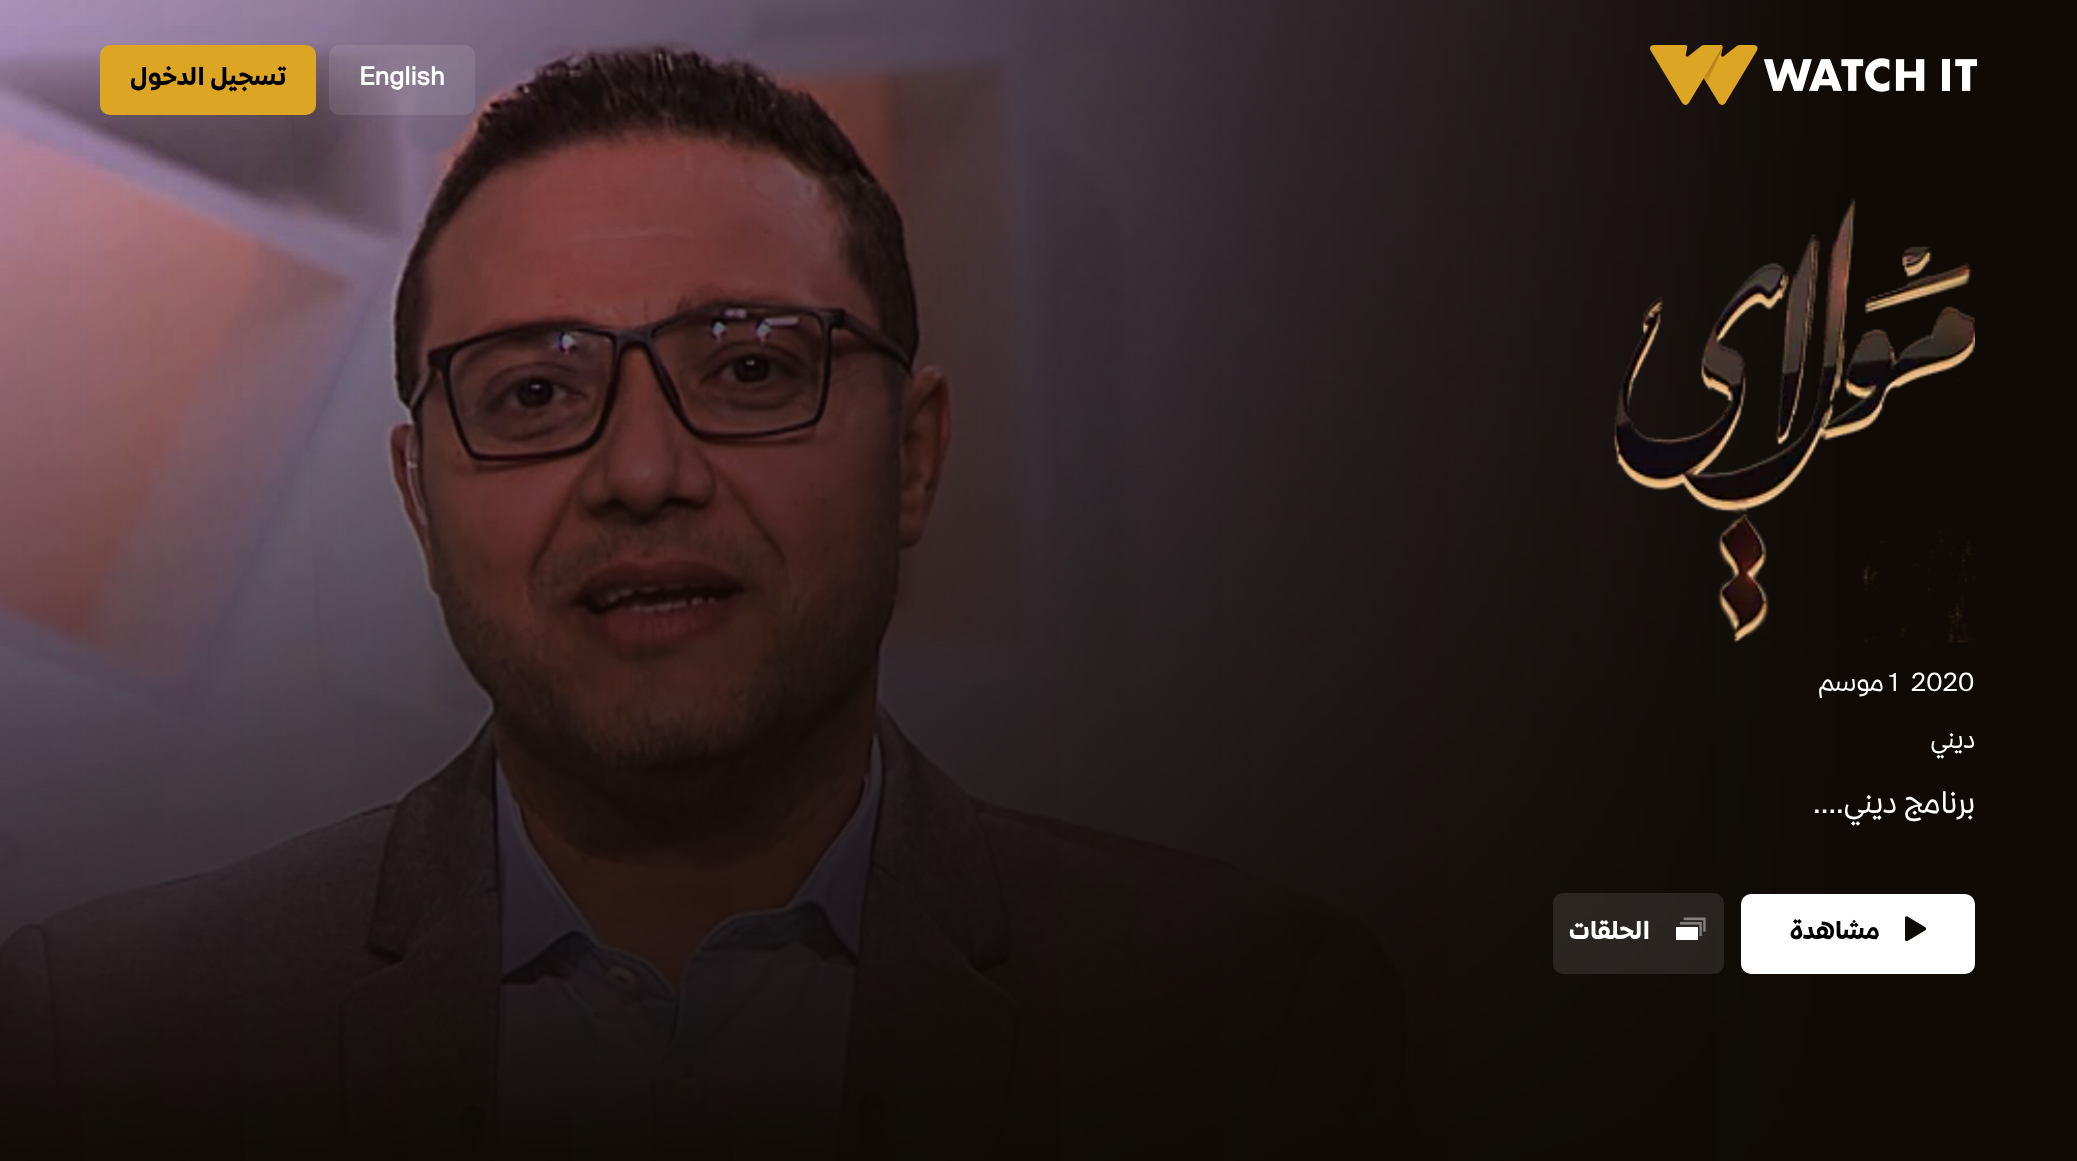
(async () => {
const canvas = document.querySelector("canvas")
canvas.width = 2077
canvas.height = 1161
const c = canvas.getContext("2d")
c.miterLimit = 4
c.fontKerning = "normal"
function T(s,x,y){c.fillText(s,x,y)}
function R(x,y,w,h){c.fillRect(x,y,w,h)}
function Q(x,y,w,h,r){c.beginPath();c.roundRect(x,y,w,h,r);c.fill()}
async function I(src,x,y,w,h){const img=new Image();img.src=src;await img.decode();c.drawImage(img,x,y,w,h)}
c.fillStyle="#fff"
R(0,0,2077,1161)
await I("2.png",0,0,2077,1161)
await I("1.png",1650,45,328,60)
c.fillStyle="#ffffff1a"
Q(329,45,146,70,10)
c.font="bold 25px '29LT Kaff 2'"
c.fillStyle="#fff"
T("English",359,85)
c.fillStyle="#dca523"
Q(100,45,216,70,10)
c.direction="rtl"
c.font="bold 25px '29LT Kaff'"
c.fillStyle="#000"
T("تسجيل الدخول",287,85)
await I("3.png",1614,197,361,446)
c.direction="ltr"
c.font="25px '29LT Kaff'"
c.fillStyle="#fff"
T("2020",1911,691)
T("1",1889,691)
c.direction="rtl"
T("موسم",1884,691)
T("ديني",1975,748)
c.font="30px '29LT Kaff'"
T("برنامج ديني....",1975,813)
Q(1741,894,234,80,10)
await I("4.png",1905,916,21,25)
c.font="bold 25px '29LT Kaff'"
c.fillStyle="#000"
T("مشاهدة",1880,939)
c.fillStyle="#ffffff1a"
Q(1553,893,171,81,10)
await I("5.png",1676,917,30,23)
c.fillStyle="#fff"
T("الحلقات",1650,939)
})()
